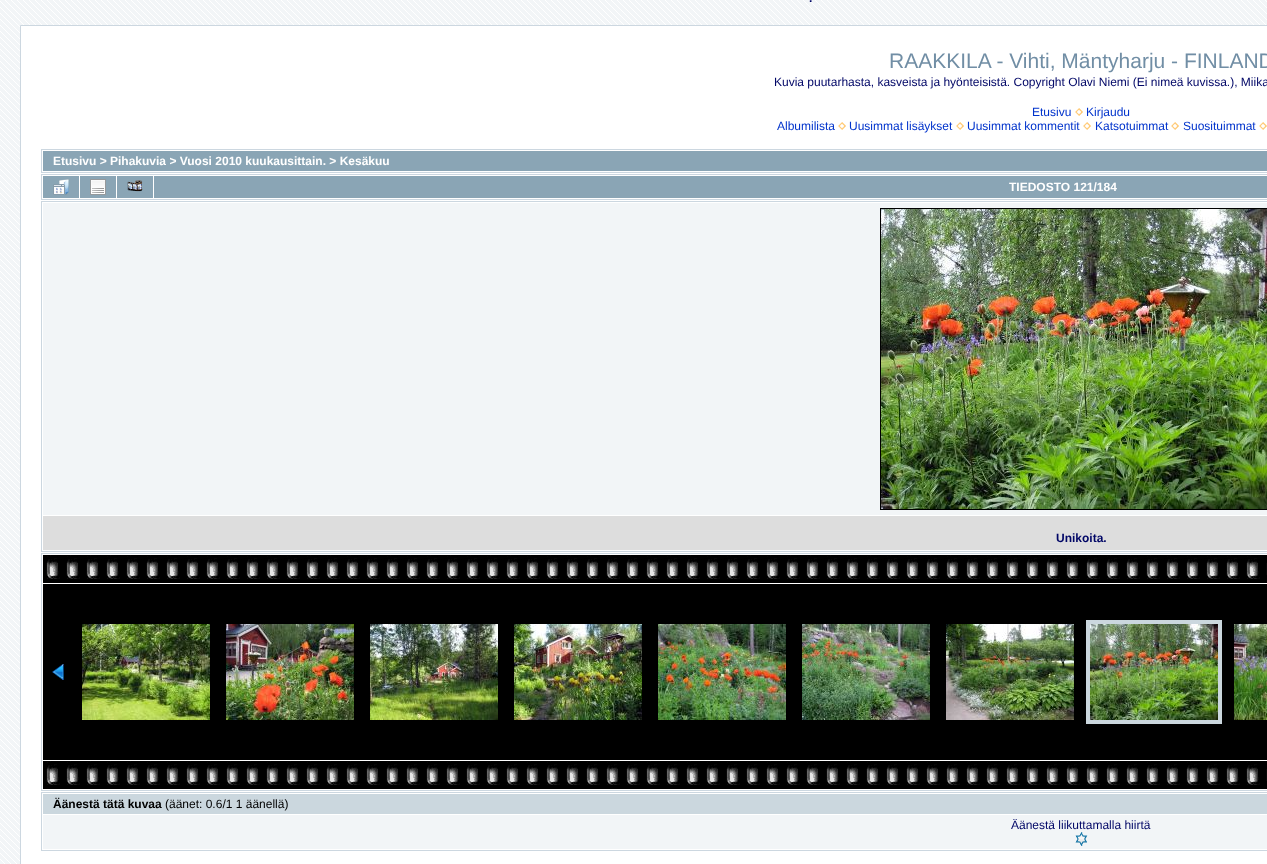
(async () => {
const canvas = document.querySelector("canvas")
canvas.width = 1267
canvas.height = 864
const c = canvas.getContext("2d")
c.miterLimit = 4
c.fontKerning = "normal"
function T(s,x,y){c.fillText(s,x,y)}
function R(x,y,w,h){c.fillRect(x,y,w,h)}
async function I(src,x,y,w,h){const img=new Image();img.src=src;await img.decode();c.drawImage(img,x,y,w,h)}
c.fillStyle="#f2f5f7"
R(0,0,1267,864)
await I("1.png",0,0,1267,864)
c.font="bold 12px Liberation Sans"
c.fillStyle="#000666"
T(".",809,2)
c.fillStyle="#fff"
c.beginPath()
c.rect(20.5,25.5,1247,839)
c.fill()
c.strokeStyle="#ccd7e0"
c.stroke()
c.font="21px Liberation Sans"
c.fillStyle="#718ea5"
T("RAAKKILA - Vihti, Mäntyharju - FINLAND",889,68)
c.font="12px Liberation Sans"
c.fillStyle="#000666"
T("Kuvia puutarhasta, kasveista ja hyönteisistä. Copyright Olavi Niemi (Ei nimeä kuvissa.), Miika",774,86)
c.fillStyle="#03c"
T("Etusivu",1032,116)
await I("2.png",1075,108,8,8)
T("Kirjaudu",1086,116)
T("Albumilista",777,130)
await I("2.png",838,122,8,8)
T("Uusimmat lisäykset",849,130)
await I("2.png",956,122,8,8)
T("Uusimmat kommentit",967,130)
await I("2.png",1083,122,8,8)
T("Katsotuimmat",1095,130)
await I("2.png",1171,122,8,8)
T("Suosituimmat",1183,130)
await I("2.png",1259,122,8,8)
c.strokeRect(41.5,149.5,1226,23)
c.fillStyle="#8aa5b5"
R(43,151,1224,20)
c.font="bold 12px Liberation Sans"
c.fillStyle="#fff"
T("Etusivu > Pihakuvia > Vuosi 2010 kuukausittain. > Kesäkuu",53,165)
c.strokeRect(41.5,174.5,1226,25)
c.fillStyle="#8aa5b5"
R(43,176,36,22)
await I("3.png",53,179,16,16)
R(80,176,36,22)
await I("4.png",90,179,16,16)
R(117,176,36,22)
await I("5.png",127,180,16,12)
R(154,176,1113,22)
c.fillStyle="#fff"
T("TIEDOSTO 121/184",1009,191)
c.strokeRect(41.5,201.5,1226,350)
c.fillStyle="#f2f5f7"
R(43,203,1224,312)
await I("6.png",881,209,386,300)
c.strokeStyle="#000"
c.strokeRect(880.5,208.5,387,301)
c.fillStyle="#ddd"
R(43,516,1224,34)
c.fillStyle="#000666"
T("Unikoita.",1056,542)
c.strokeStyle="#ccd7e0"
c.strokeRect(41.5,553.5,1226,237)
c.fillStyle="#000"
R(43,555,1224,28)
await I("7.png",46,555,1221,24)
R(43,584,1224,176)
await I("8.png",52,664,12,16)
await I("9.png",82,624,128,96)
await I("10.png",226,624,128,96)
await I("11.png",370,624,128,96)
await I("12.png",514,624,128,96)
await I("13.png",658,624,128,96)
await I("14.png",802,624,128,96)
await I("15.png",946,624,128,96)
c.strokeStyle="#cbd7de"
c.lineWidth=4
c.strokeRect(1088,622,132,100)
await I("16.png",1090,624,128,96)
await I("17.png",1234,624,33,96)
R(43,761,1224,28)
await I("7.png",46,761,1221,24)
c.strokeStyle="#ccd7e0"
c.lineWidth=1
c.strokeRect(41.5,792.5,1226,58)
c.fillStyle="#cbd7de"
R(43,794,1224,20)
c.fillStyle="#000"
T("Äänestä tätä kuvaa",53,808)
c.font="12px Liberation Sans"
T("(äänet: 0.6/1 1 äänellä)",165,808)
c.fillStyle="#f2f5f7"
R(43,815,1224,34)
c.fillStyle="#000666"
T("Äänestä liikuttamalla hiirtä",1011,829)
await I("18.png",1075,832,13,14)
})()
